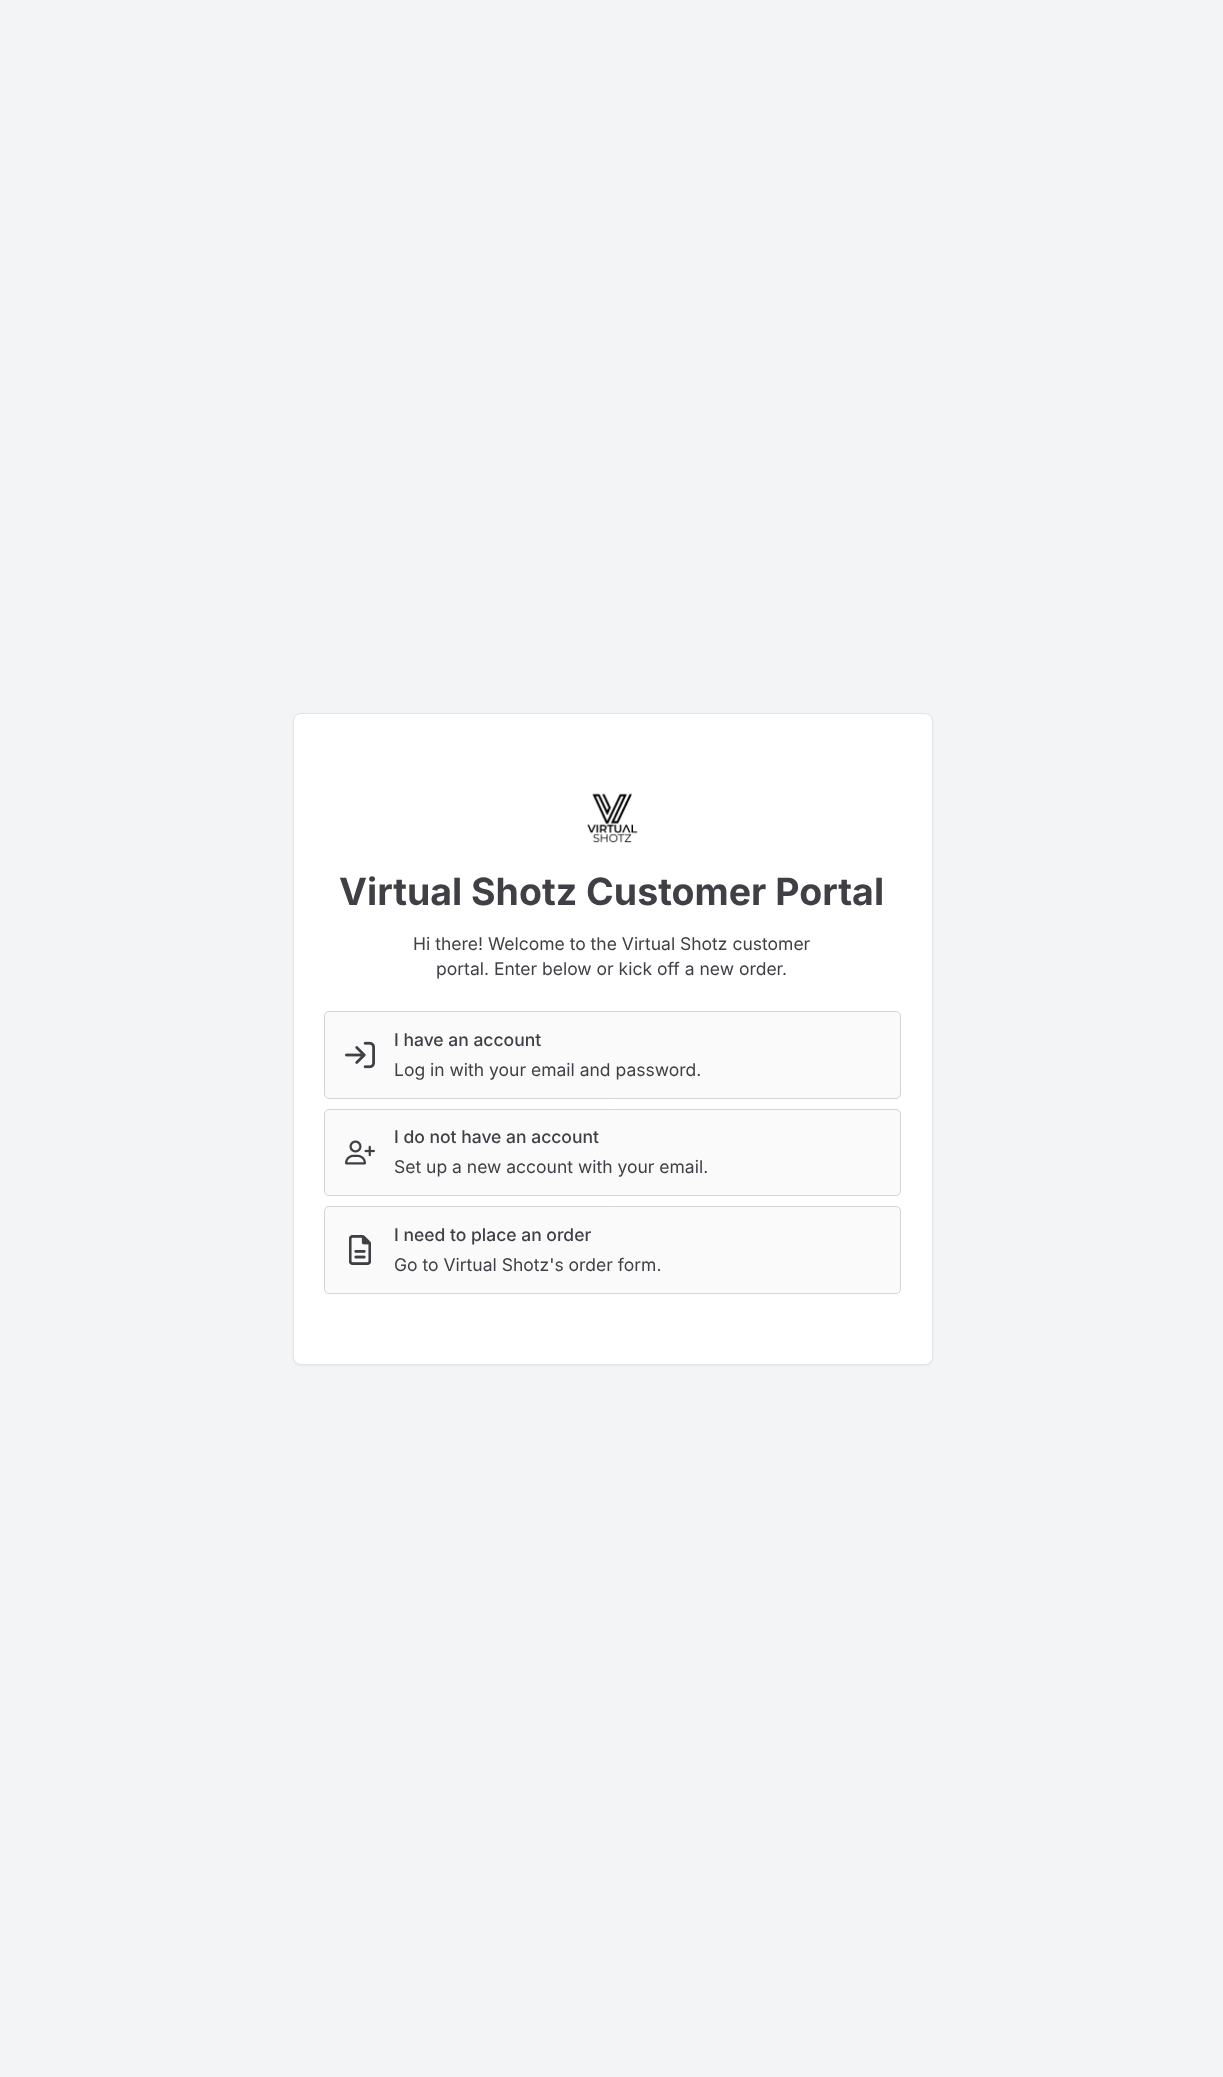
(async () => {
const canvas = document.querySelector("canvas")
canvas.width = 1223
canvas.height = 2077
const c = canvas.getContext("2d")
c.miterLimit = 4
c.fontKerning = "normal"
function T(s,x,y){c.fillText(s,x,y)}
function R(x,y,w,h){c.fillRect(x,y,w,h)}
async function I(src,x,y,w,h){const img=new Image();img.src=src;await img.decode();c.drawImage(img,x,y,w,h)}
c.fillStyle="#f3f4f6"
R(0,0,1223,2077)
c.fillStyle="#0000000d"
c.filter="blur(1px)"
c.beginPath()
c.roundRect(293,714,640,652,8)
c.fill()
c.filter="none"
c.fillStyle="#fff"
c.beginPath()
c.roundRect(293.5,713.5,639,651,7.5)
c.fill()
c.strokeStyle="#e4e4e7"
c.stroke()
await I("1.png",587,793,51,50)
c.font="bold 37.5px Inter"
c.fillStyle="#3f3f46"
T("Virtual Shotz Customer Portal",339,905)
c.font="17.5px Inter"
T("Hi there! Welcome to the Virtual Shotz customer",413,950)
T("portal. Enter below or kick off a new order.",436,975)
c.fillStyle="#fafafa"
c.beginPath()
c.roundRect(324.5,1011.5,576,87,4.5)
c.fill()
c.strokeStyle="#d4d4d8"
c.stroke()
await I("2.png",345,1041,30,28)
c.font="500 17.5px Inter"
c.fillStyle="#3f3f46"
T("I have an account",394,1046)
c.font="17.5px Inter"
T("Log in with your email and password.",394,1076)
c.fillStyle="#fafafa"
c.beginPath()
c.roundRect(324.5,1109.5,576,86,4.5)
c.fill()
c.stroke()
await I("3.png",345,1140,30,25)
c.font="500 17.5px Inter"
c.fillStyle="#3f3f46"
T("I do not have an account",394,1143)
c.font="17.5px Inter"
T("Set up a new account with your email.",394,1173)
c.fillStyle="#fafafa"
c.beginPath()
c.roundRect(324.5,1206.5,576,87,4.5)
c.fill()
c.stroke()
await I("4.png",349,1235,22,30)
c.font="500 17.5px Inter"
c.fillStyle="#3f3f46"
T("I need to place an order",394,1241)
c.font="17.5px Inter"
T("Go to Virtual Shotz's order form.",394,1271)
})()
